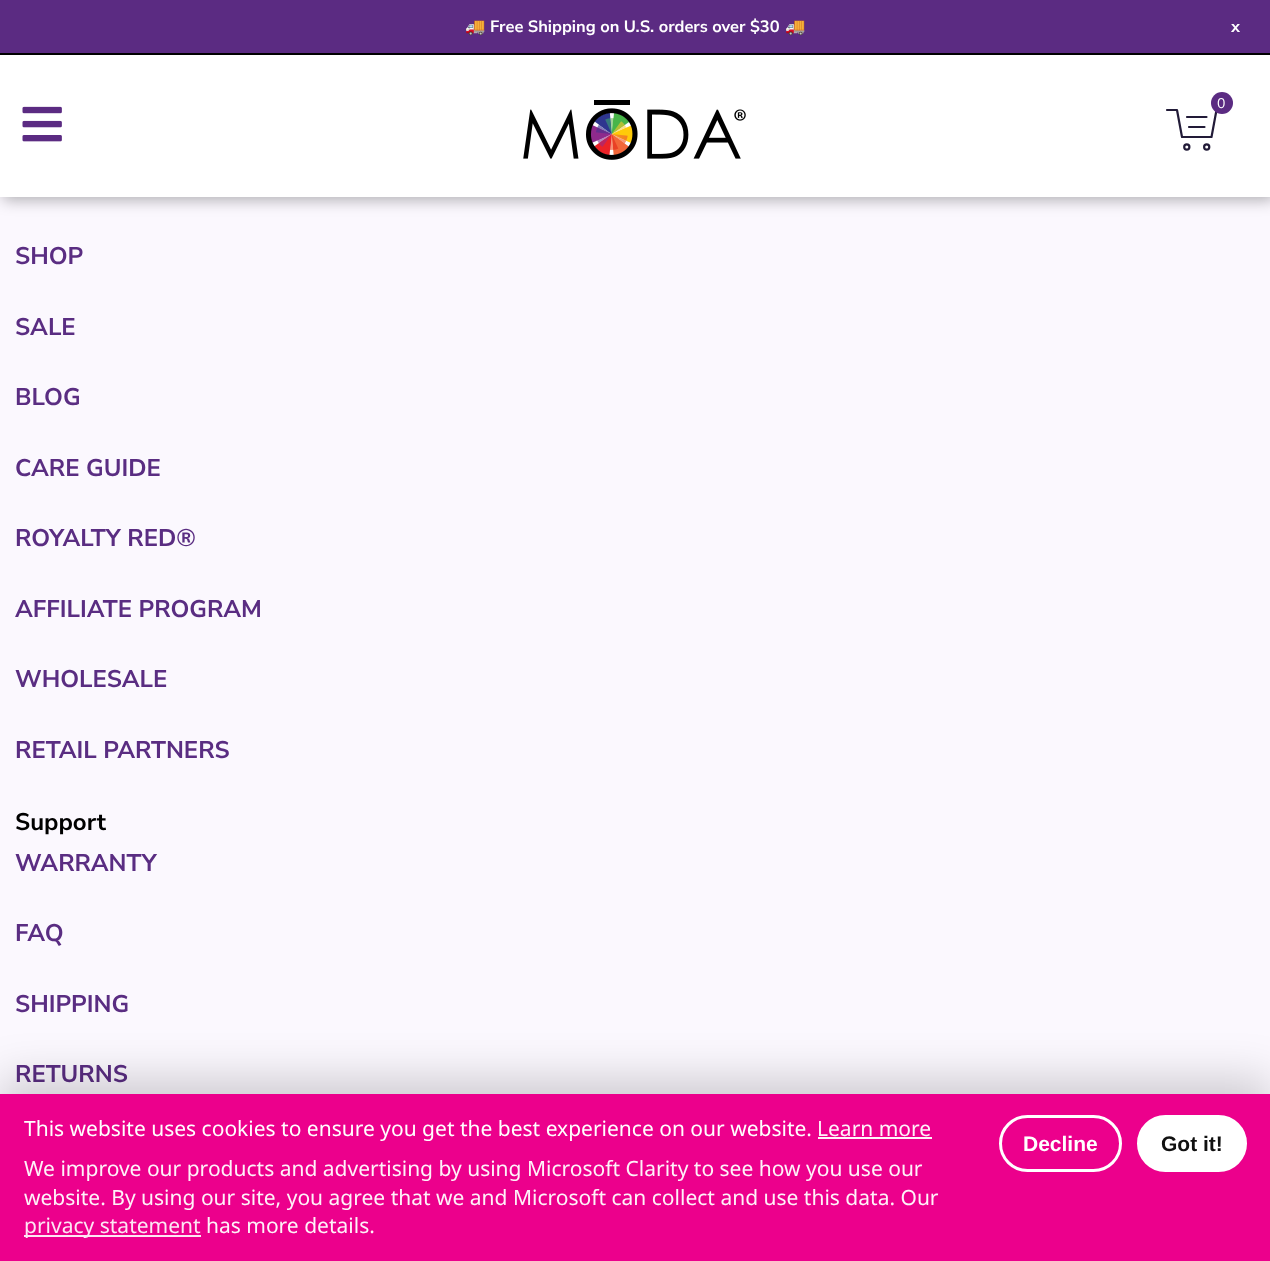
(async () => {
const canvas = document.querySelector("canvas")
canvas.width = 1270
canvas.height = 1261
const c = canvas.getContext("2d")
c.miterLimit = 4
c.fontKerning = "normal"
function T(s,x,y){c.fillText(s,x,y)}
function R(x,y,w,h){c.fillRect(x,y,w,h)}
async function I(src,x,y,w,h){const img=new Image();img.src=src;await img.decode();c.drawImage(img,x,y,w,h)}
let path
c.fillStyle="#fbf8fe"
R(0,0,1270,1261)
c.fillStyle="#0000004d"
c.filter="blur(7.5px)"
c.beginPath()
c.rect(3,3,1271,197)
c.fill()
c.filter="none"
c.fillStyle="#5b2b82"
R(0,0,1270,53)
c.fillStyle="#000"
R(0,53,1270,2)
c.font="bold 16.5px Noto Color Emoji"
c.fillStyle="#fff"
T("🚚",465,32)
c.font="bold 16.5px Nunito Sans"
T("Free Shipping on U.S. orders over $30",490,32)
c.font="bold 16.5px Noto Color Emoji"
T("🚚",785,32)
c.font="bold 16.5px Nunito Sans"
T("x",1231,32)
R(0,55,1270,142)
await I("1.png",22,106,40,36)
await I("2.png",523,100,223,60)
path = new Path2D("M1167 110h10l5 27h29.5l5-27m-29.5 7h19.5m-17.5 10h15.5")
c.strokeStyle="#221b38"
c.lineWidth=2.2
c.lineCap="round"
c.lineJoin="round"
c.stroke(path)
c.fillStyle="#5b2b82"
c.beginPath()
c.arc(1222,103,11,0,7)
c.fill()
c.font="200 14px Nunito Sans"
c.fillStyle="#fff"
T("0",1217,108)
c.beginPath()
c.arc(1186.8,147,2.6,0,7)
c.stroke()
c.beginPath()
c.arc(1206.7,147,2.6,0,7)
c.stroke()
c.font="bold 24px Nunito Sans"
c.fillStyle="#5a2d82"
T("SHOP",15,264)
T("SALE",15,335)
T("BLOG",15,405)
T("CARE GUIDE",15,476)
T("ROYALTY RED®",15,546)
T("AFFILIATE PROGRAM",15,617)
T("WHOLESALE",15,687)
T("RETAIL PARTNERS",15,758)
c.fillStyle="#000"
T("Support",15,830)
c.fillStyle="#5a2d82"
T("WARRANTY",15,871)
T("FAQ",15,941)
T("SHIPPING",15,1012)
T("RETURNS",15,1082)
c.fillStyle="#0000002e"
c.filter="blur(22.5px)"
c.beginPath()
c.rect(0,1079,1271,168)
c.fill()
c.filter="none"
c.fillStyle="#ec008c"
R(0,1094,1270,167)
c.font="21px Noto Sans"
c.fillStyle="#fff"
T("This website uses cookies to ensure you get the best experience on our website.",24,1136)
c.fillStyle="#fef2f9"
T("Learn more",817,1136)
R(818,1137,114,2)
T("We improve our products and advertising by using Microsoft Clarity to see how you use our",24,1176)
T("website. By using our site, you agree that we and Microsoft can collect and use this data. Our",24,1205)
c.fillStyle="#fde6f4"
R(24,1235,177,2)
T("privacy statement",24,1233)
c.fillStyle="#fef2f9"
T("has more details.",206,1233)
c.beginPath()
c.roundRect(1000.5,1116.5,120,54,27)
c.strokeStyle="#fff"
c.lineWidth=3
c.lineJoin="miter"
c.stroke()
c.font="bold 21px Liberation Sans"
c.fillStyle="#fff"
T("Decline",1023,1151)
c.beginPath()
c.roundRect(1138.5,1116.5,107,54,27)
c.fill()
c.stroke()
c.fillStyle="#111"
T("Got it!",1161,1151)
})()
